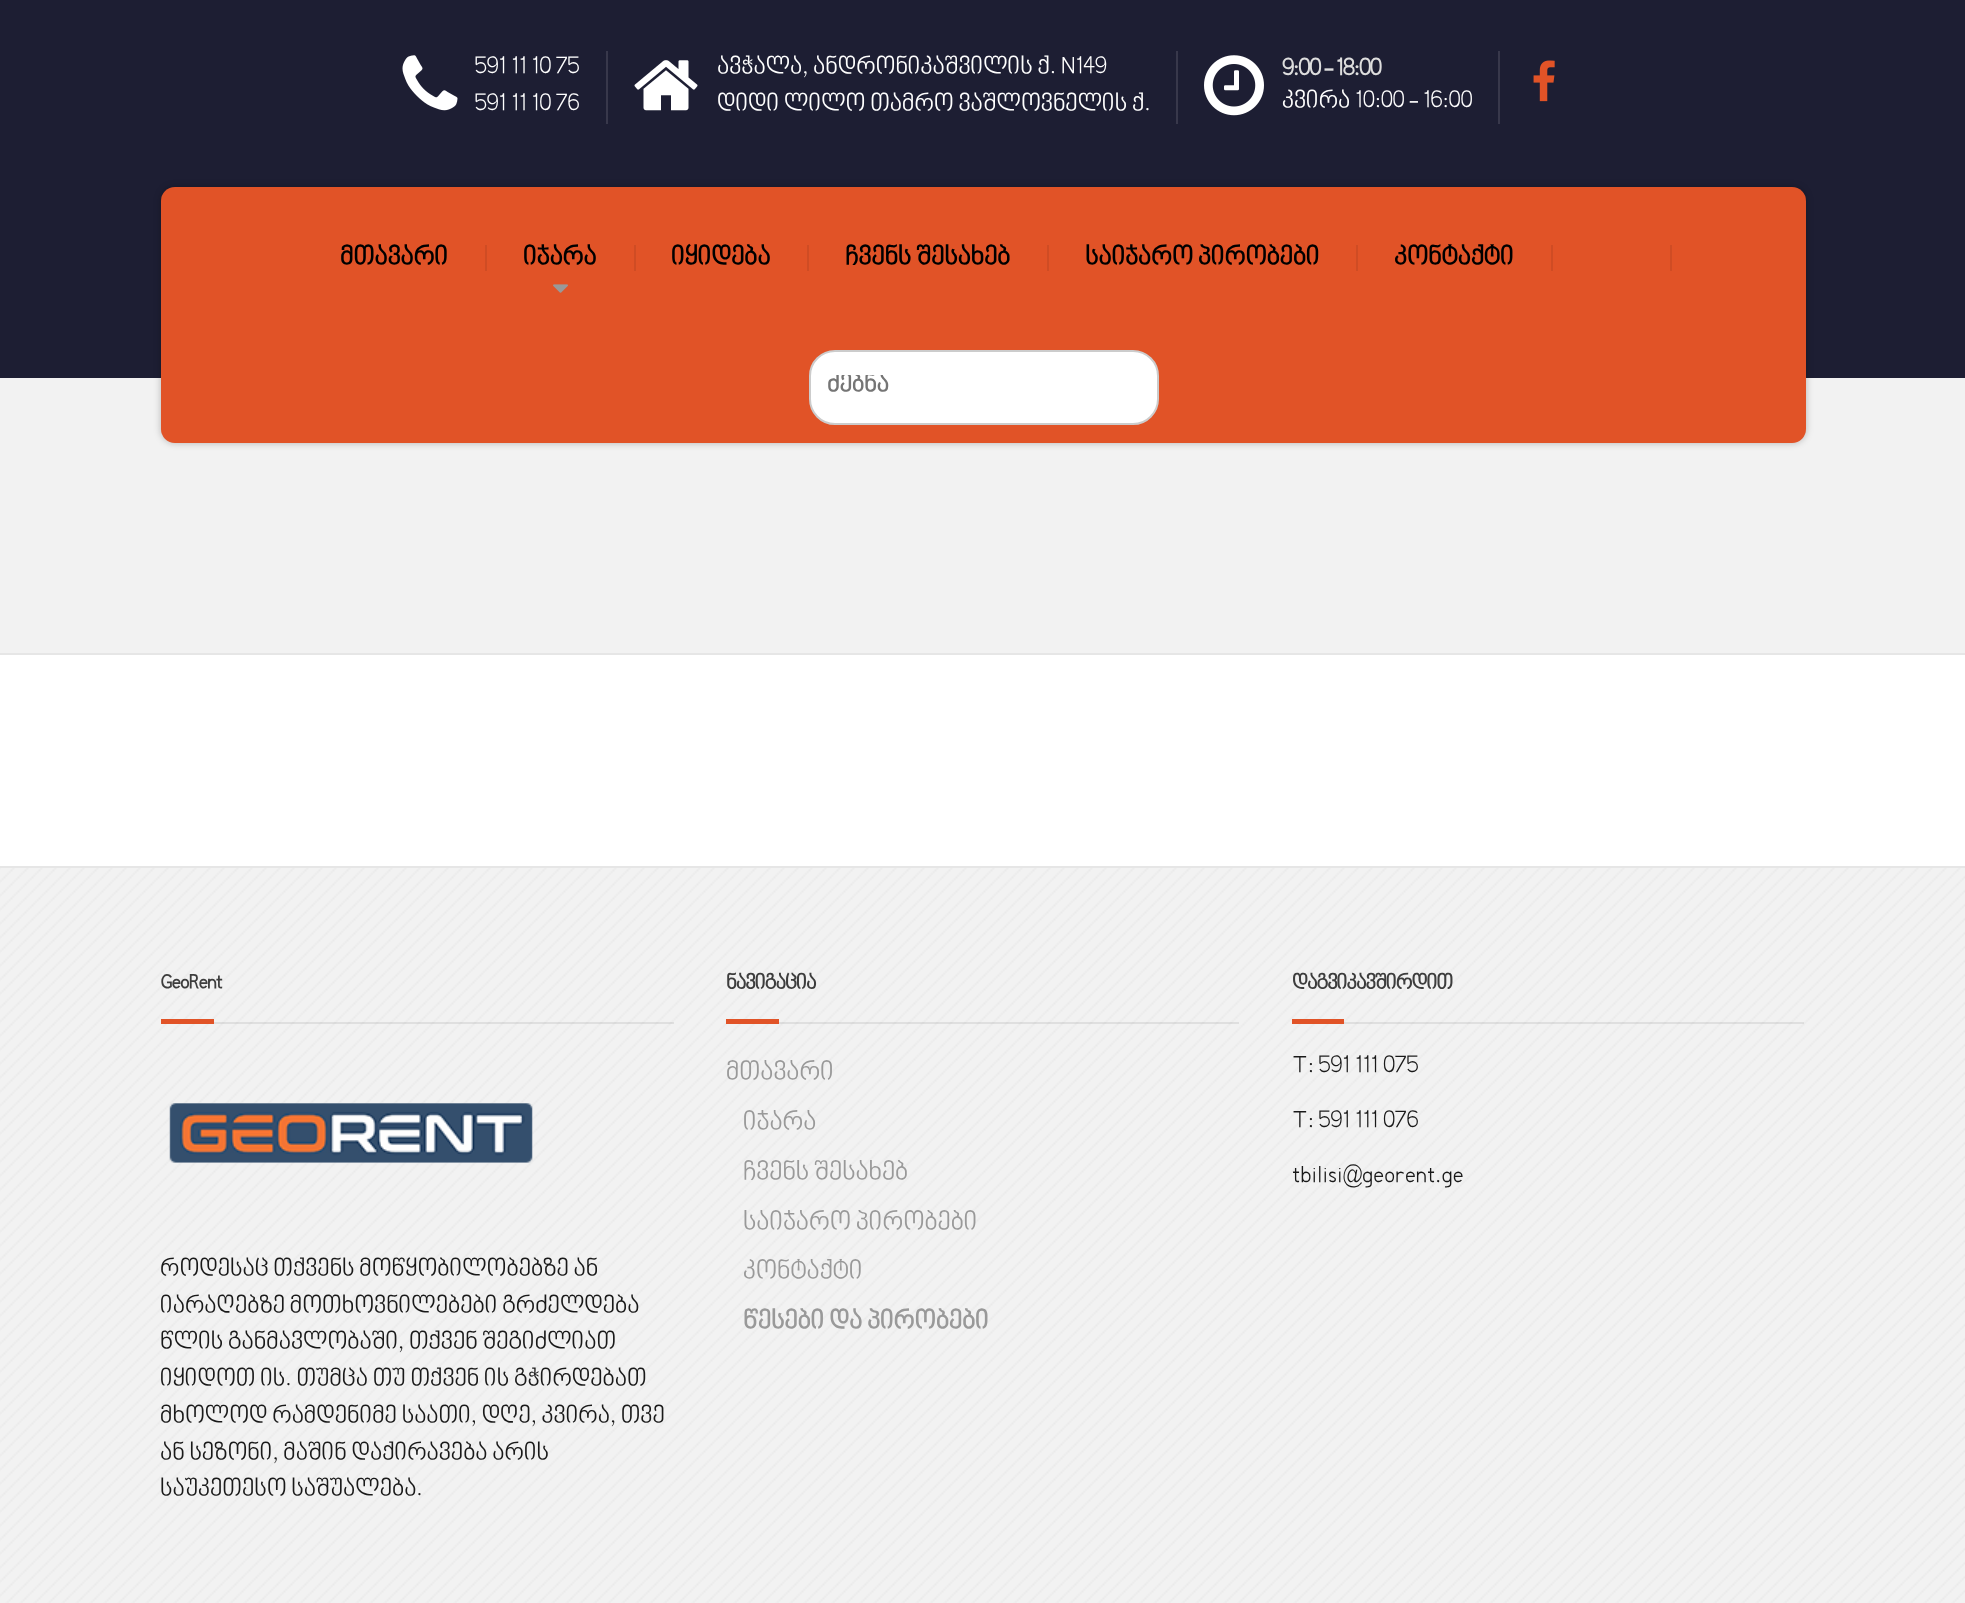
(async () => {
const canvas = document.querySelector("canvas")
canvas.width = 1965
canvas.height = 1603
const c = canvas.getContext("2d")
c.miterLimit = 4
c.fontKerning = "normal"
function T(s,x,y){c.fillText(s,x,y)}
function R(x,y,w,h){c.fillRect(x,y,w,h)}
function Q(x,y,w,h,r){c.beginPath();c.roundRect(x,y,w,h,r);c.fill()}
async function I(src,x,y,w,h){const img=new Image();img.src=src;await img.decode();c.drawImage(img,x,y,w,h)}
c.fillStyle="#fff"
R(0,0,1965,1603)
c.fillStyle="#1d1e33"
R(0,0,1965,378)
c.fillStyle="#38384b"
R(606,51,2,73)
await I("1.png",402,55,56,56)
c.font="24.5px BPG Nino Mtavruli"
c.fillStyle="#fff"
T("591 11 10 75",475,75)
T("591 11 10 76",475,112)
c.fillStyle="#38384b"
R(1176,51,2,73)
await I("2.png",634,60,64,51)
c.fillStyle="#fff"
T("ავჭალა, ანდრონიკაშვილის ქ. N149",717,75)
T("დიდი ლილო თამრო ვაშლოვნელის ქ.",717,112)
c.fillStyle="#38384b"
R(1498,51,2,73)
await I("3.png",1204,55,60,61)
c.letterSpacing="-0.9px"
c.font="bold 24.5px BPG Nino Mtavruli"
c.fillStyle="#ddd"
T("9:00 - 18:00",1282,77)
c.letterSpacing="0px"
c.font="24.5px BPG Nino Mtavruli"
c.fillStyle="#fff"
T("კვირა 10:00 - 16:00",1282,109)
await I("4.png",1533,60,22,42)
c.fillStyle="#f2f2f2"
R(0,378,1965,275)
c.fillStyle="#00000040"
c.filter="blur(3.5px)"
c.beginPath()
c.roundRect(161,187,1645,256,14)
c.fill()
c.filter="none"
c.fillStyle="#e15327"
Q(161,187,1645,256,14)
c.font="bold 26.25px BPG Nino Mtavruli"
c.fillStyle="#000"
T("მთავარი",340,266)
c.fillStyle="#cf4c24"
R(485,245,2,26)
c.fillStyle="#000"
T("იჯარა",523,266)
c.fillStyle="#cf4c24"
R(634,245,2,26)
await I("5.png",553,284,15,9)
c.fillStyle="#000"
T("იყიდება",671,266)
c.fillStyle="#cf4c24"
R(807,245,2,26)
c.fillStyle="#000"
T("ჩვენს შესახებ",845,266)
c.fillStyle="#cf4c24"
R(1047,245,2,26)
c.fillStyle="#000"
T("საიჯარო პირობები",1085,266)
c.fillStyle="#cf4c24"
R(1356,245,2,26)
c.fillStyle="#000"
T("კონტაქტი",1394,266)
c.fillStyle="#cf4c24"
R(1551,245,2,26)
R(1670,245,2,26)
c.fillStyle="#fff"
c.beginPath()
c.roundRect(810,351,348,73,25)
c.fill()
c.strokeStyle="#ccc"
c.lineWidth=2
c.stroke()
c.save()
c.beginPath()
c.rect(828,375,311,24)
c.clip()
c.font="bold 24.5px BPG Nino Mtavruli"
c.fillStyle="#757575"
T("ძებნა",827,393)
c.restore()
c.fillStyle="#e6e6e6"
R(0,653,1965,2)
c.fillStyle="#f2f2f2"
R(0,868,1965,735)
await I("6.png",0,868,1965,735)
c.fillStyle="#e6e6e6"
R(0,866,1965,2)
c.fillStyle="#00000014"
R(214,1022,460,2)
c.letterSpacing="-0.9px"
c.font="bold 21px BPG Nino Mtavruli"
c.fillStyle="#3d3d3d"
T("GeoRent",160,990)
c.fillStyle="#e15327"
R(161,1019,53,5)
await I("7.png",169,1103,364,60)
c.letterSpacing="0px"
c.font="24.5px BPG Nino Mtavruli"
c.fillStyle="#191919"
T("როდესაც თქვენს მოწყობილობებზე ან",160,1277)
T("იარაღებზე მოთხოვნილებები გრძელდება",160,1314)
T("წლის განმავლობაში, თქვენ შეგიძლიათ",160,1350)
T("იყიდოთ ის. თუმცა თუ თქვენ ის გჭირდებათ",160,1387)
T("მხოლოდ რამდენიმე საათი, დღე, კვირა, თვე",160,1424)
T("ან სეზონი, მაშინ დაქირავება არის",160,1461)
T("საუკეთესო საშუალება.",160,1497)
c.fillStyle="#00000014"
R(779,1022,460,2)
c.letterSpacing="-0.9px"
c.font="bold 21px BPG Nino Mtavruli"
c.fillStyle="#3d3d3d"
T("ნავიგაცია",726,990)
c.fillStyle="#e15327"
R(726,1019,53,5)
c.letterSpacing="0px"
c.font="26.25px BPG Nino Mtavruli"
c.fillStyle="#999"
T("მთავარი",726,1081)
T("იჯარა",743,1131)
T("ჩვენს შესახებ",743,1181)
T("საიჯარო პირობები",743,1231)
T("კონტაქტი",743,1280)
c.font="bold 26.25px BPG Nino Mtavruli"
T("წესები და პირობები",743,1330)
c.fillStyle="#00000014"
R(1344,1022,460,2)
c.letterSpacing="-0.9px"
c.font="bold 21px BPG Nino Mtavruli"
c.fillStyle="#3d3d3d"
T("დაგვიკავშირდით",1292,990)
c.fillStyle="#e15327"
R(1292,1019,52,5)
c.letterSpacing="0px"
c.font="24.5px BPG Nino Mtavruli"
c.fillStyle="#191919"
T("T: 591 111 075",1292,1074)
T("T: 591 111 076",1292,1129)
T("tbilisi@georent.ge",1292,1184)
})()
